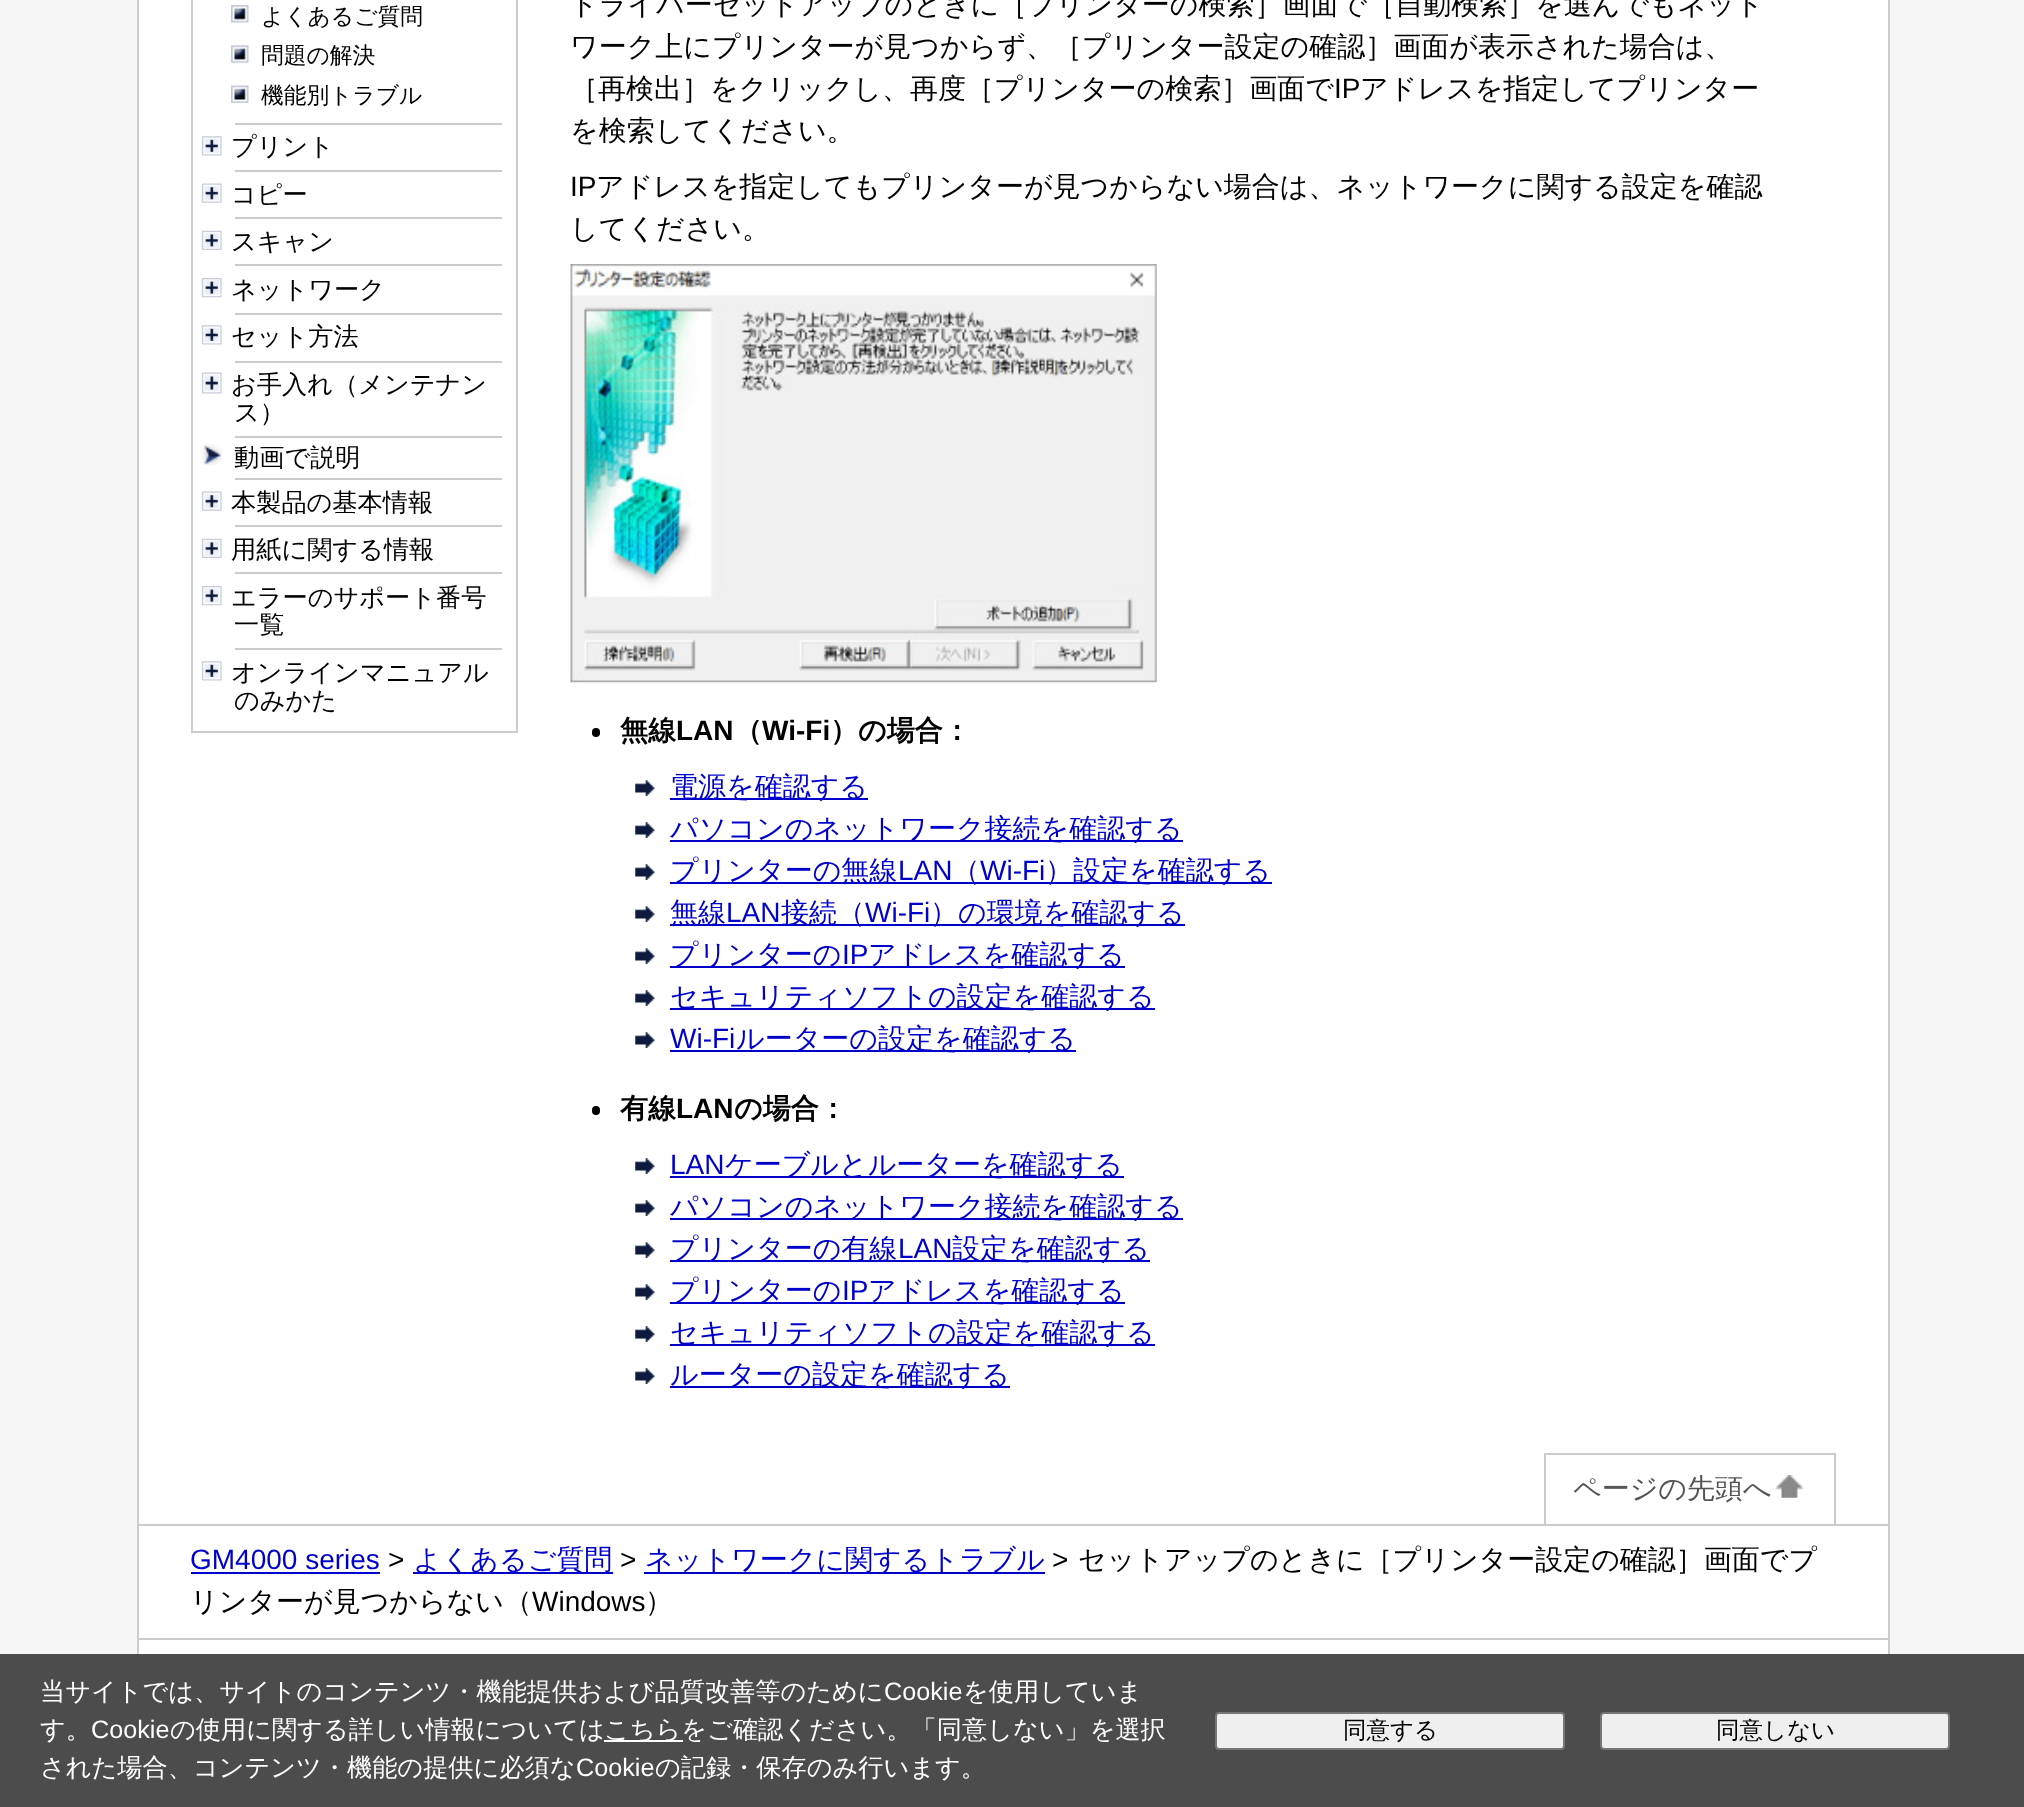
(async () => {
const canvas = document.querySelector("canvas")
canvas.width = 2024
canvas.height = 1807
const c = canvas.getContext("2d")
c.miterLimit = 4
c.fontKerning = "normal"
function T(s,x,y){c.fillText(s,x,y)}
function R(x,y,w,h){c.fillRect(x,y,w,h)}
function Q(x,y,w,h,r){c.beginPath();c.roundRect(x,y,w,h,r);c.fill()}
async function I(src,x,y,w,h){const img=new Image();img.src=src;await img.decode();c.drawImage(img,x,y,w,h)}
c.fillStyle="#f6f6f6"
R(0,0,2024,1807)
c.fillStyle="#fff"
R(139,0,1749,1654)
c.fillStyle="#ccc"
R(1888,0,2,1654)
R(137,0,2,1654)
c.strokeStyle="#ccc"
c.lineWidth=2
c.strokeRect(192,-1,325,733)
R(235,123,267,2)
await I("1.png",231,5,18,18)
c.font="500 22.75px WenQuanYi Zen Hei"
c.fillStyle="#000"
T("よくあるご質問",261,24)
await I("2.png",231,45,18,18)
T("問題の解決",261,63)
await I("3.png",231,85,18,18)
T("機能別トラブル",261,103)
c.fillStyle="#ccc"
R(235,170,267,2)
await I("4.png",201,136,21,20)
c.font="500 25.2px WenQuanYi Zen Hei"
c.fillStyle="#000"
T("プリント",231,155)
c.fillStyle="#ccc"
R(235,217,267,2)
await I("5.png",201,183,21,20)
c.fillStyle="#000"
T("コピー",231,203)
c.fillStyle="#ccc"
R(235,264,267,2)
await I("6.png",201,230,21,20)
c.fillStyle="#000"
T("スキャン",231,250)
c.fillStyle="#ccc"
R(235,313,267,2)
await I("7.png",201,278,21,20)
c.fillStyle="#000"
T("ネットワーク",231,298)
c.fillStyle="#ccc"
R(235,361,267,2)
await I("4.png",201,325,21,20)
c.fillStyle="#000"
T("セット方法",231,345)
c.fillStyle="#ccc"
R(235,436,267,2)
await I("8.png",201,372,21,22)
c.fillStyle="#000"
T("お手入れ（メンテナン",231,393)
T("ス）",234,421)
c.fillStyle="#ccc"
R(235,478,267,2)
await I("9.png",201,444,21,22)
c.fillStyle="#000"
T("動画で説明",234,466)
c.fillStyle="#ccc"
R(235,525,267,2)
await I("5.png",201,491,21,20)
c.fillStyle="#000"
T("本製品の基本情報",231,511)
c.fillStyle="#ccc"
R(235,572,267,2)
await I("6.png",201,538,21,20)
c.fillStyle="#000"
T("用紙に関する情報",231,558)
c.fillStyle="#ccc"
R(235,648,267,2)
await I("7.png",201,586,21,20)
c.fillStyle="#000"
T("エラーのサポート番号",231,606)
T("一覧",234,633)
await I("4.png",201,661,21,20)
T("オンラインマニュアル",231,681)
T("のみかた",234,709)
c.font="500 28px WenQuanYi Zen Hei"
T("ドライバーセットアップのときに［プリンターの検索］画面で［自動検索］を選んでもネット",570,14)
T("ワーク上にプリンターが見つからず、［プリンター設定の確認］画面が表示された場合は、",570,56)
T("［再検出］をクリックし、再度［プリンターの検索］画面で",570,98)
c.font="28px Liberation Sans"
T("IP",1334,98)
c.font="500 28px WenQuanYi Zen Hei"
T("アドレスを指定してプリンター",1360,98)
T("を検索してください。",570,140)
c.font="28px Liberation Sans"
T("IP",570,196)
c.font="500 28px WenQuanYi Zen Hei"
T("アドレスを指定してもプリンターが見つからない場合は、ネットワークに関する設定を確認",596,196)
T("してください。",570,238)
await I("10.png",570,264,587,419)
Q(592,728,8,9,4)
c.font="bold 28px WenQuanYi Zen Hei"
T("無線",620,740)
c.font="bold 28px Liberation Sans"
T("LAN",676,740)
c.font="bold 28px WenQuanYi Zen Hei"
T("（",734,740)
c.font="bold 28px Liberation Sans"
T("Wi-Fi",762,740)
c.font="bold 28px WenQuanYi Zen Hei"
T("）の場合：",830,740)
await I("11.png",635,780,20,16)
c.fillStyle="#00c"
R(670,798,198,2)
c.font="500 28px WenQuanYi Zen Hei"
T("電源を確認する",670,796)
await I("11.png",635,822,20,16)
R(670,840,513,2)
T("パソコンのネットワーク接続を確認する",670,838)
await I("11.png",635,864,20,16)
R(670,882,602,2)
T("プリンターの無線",670,880)
c.font="28px Liberation Sans"
T("LAN",898,880)
c.font="500 28px WenQuanYi Zen Hei"
T("（",952,880)
c.font="28px Liberation Sans"
T("Wi-Fi",980,880)
c.font="500 28px WenQuanYi Zen Hei"
T("）設定を確認する",1045,880)
await I("11.png",635,906,20,16)
R(670,924,515,2)
T("無線",670,922)
c.font="28px Liberation Sans"
T("LAN",726,922)
c.font="500 28px WenQuanYi Zen Hei"
T("接続（",781,922)
c.font="28px Liberation Sans"
T("Wi-Fi",865,922)
c.font="500 28px WenQuanYi Zen Hei"
T("）の環境を確認する",930,922)
await I("11.png",635,948,20,16)
R(670,966,455,2)
T("プリンターの",670,964)
c.font="28px Liberation Sans"
T("IP",842,964)
c.font="500 28px WenQuanYi Zen Hei"
T("アドレスを確認する",868,964)
await I("11.png",635,990,20,16)
R(670,1008,485,2)
T("セキュリティソフトの設定を確認する",670,1006)
await I("11.png",635,1032,20,16)
c.font="28px Liberation Sans"
T("Wi-Fi",670,1048)
R(670,1050,406,2)
c.font="500 28px WenQuanYi Zen Hei"
T("ルーターの設定を確認する",736,1048)
c.fillStyle="#000"
Q(592,1106,8,9,4)
c.font="bold 28px WenQuanYi Zen Hei"
T("有線",620,1118)
c.font="bold 28px Liberation Sans"
T("LAN",676,1118)
c.font="bold 28px WenQuanYi Zen Hei"
T("の場合：",734,1118)
await I("11.png",635,1158,20,16)
c.font="28px Liberation Sans"
c.fillStyle="#00c"
T("LAN",670,1174)
R(670,1176,454,2)
c.font="500 28px WenQuanYi Zen Hei"
T("ケーブルとルーターを確認する",725,1174)
await I("11.png",635,1200,20,16)
R(670,1218,513,2)
T("パソコンのネットワーク接続を確認する",670,1216)
await I("11.png",635,1242,20,16)
R(670,1260,480,2)
T("プリンターの有線",670,1258)
c.font="28px Liberation Sans"
T("LAN",898,1258)
c.font="500 28px WenQuanYi Zen Hei"
T("設定を確認する",952,1258)
await I("12.png",635,1284,20,16)
R(670,1302,455,2)
T("プリンターの",670,1300)
c.font="28px Liberation Sans"
T("IP",842,1300)
c.font="500 28px WenQuanYi Zen Hei"
T("アドレスを確認する",868,1300)
await I("13.png",635,1326,20,16)
R(670,1344,485,2)
T("セキュリティソフトの設定を確認する",670,1342)
await I("11.png",635,1368,20,16)
R(670,1386,340,2)
T("ルーターの設定を確認する",670,1384)
c.fillStyle="#ccc"
R(138,1638,1750,2)
R(1544,1453,292,2)
R(1834,1453,2,71)
R(1544,1453,2,71)
c.fillStyle="#555"
T("ページの先頭へ",1573,1498)
await I("14.png",1775,1475,29,23)
c.fillStyle="#ccc"
R(138,1524,1750,2)
c.font="28px Liberation Sans"
c.fillStyle="#00c"
T("GM4000 series",190,1569)
R(191,1572,189,2)
c.fillStyle="#000"
T(">",388,1569)
c.fillStyle="#00c"
R(413,1572,200,2)
c.font="500 28px WenQuanYi Zen Hei"
T("よくあるご質問",413,1569)
c.font="28px Liberation Sans"
c.fillStyle="#000"
T(">",620,1569)
c.fillStyle="#00c"
R(644,1572,401,2)
c.font="500 28px WenQuanYi Zen Hei"
T("ネットワークに関するトラブル",645,1569)
c.font="28px Liberation Sans"
c.fillStyle="#000"
T(">",1052,1569)
c.font="500 28px WenQuanYi Zen Hei"
T("セットアップのときに［プリンター設定の確認］画面でプ",1078,1569)
T("リンターが見つからない（",190,1611)
c.font="28px Liberation Sans"
T("Windows",532,1611)
c.font="500 28px WenQuanYi Zen Hei"
T("）",645,1611)
c.fillStyle="#4c4c4c"
R(0,1654,2024,153)
c.font="500 25.2px WenQuanYi Zen Hei"
c.fillStyle="#fff"
T("当サイトでは、サイトのコンテンツ・機能提供および品質改善等のために",40,1700)
c.font="25.2px Liberation Sans"
T("Cookie",884,1700)
c.font="500 25.2px WenQuanYi Zen Hei"
T("を使用していま",963,1700)
T("す。",40,1738)
c.font="25.2px Liberation Sans"
T("Cookie",91,1738)
c.font="500 25.2px WenQuanYi Zen Hei"
T("の使用に関する詳しい情報については",170,1738)
R(604,1740,79,2)
T("こちらをご確認ください。「同意しない」を選択",604,1738)
T("された場合、コンテンツ・機能の提供に必須な",40,1776)
c.font="25.2px Liberation Sans"
T("Cookie",576,1776)
c.font="500 25.2px WenQuanYi Zen Hei"
T("の記録・保存のみ行います。",655,1776)
c.fillStyle="#efefef"
c.beginPath()
c.roundRect(1216,1713,348,36,3)
c.fill()
c.strokeStyle="#767676"
c.stroke()
c.font="500 23.5px WenQuanYi Zen Hei"
c.fillStyle="#000"
T("同意する",1343,1738)
c.fillStyle="#efefef"
c.beginPath()
c.roundRect(1601,1713,348,36,3)
c.fill()
c.stroke()
c.fillStyle="#000"
T("同意しない",1716,1738)
})()
